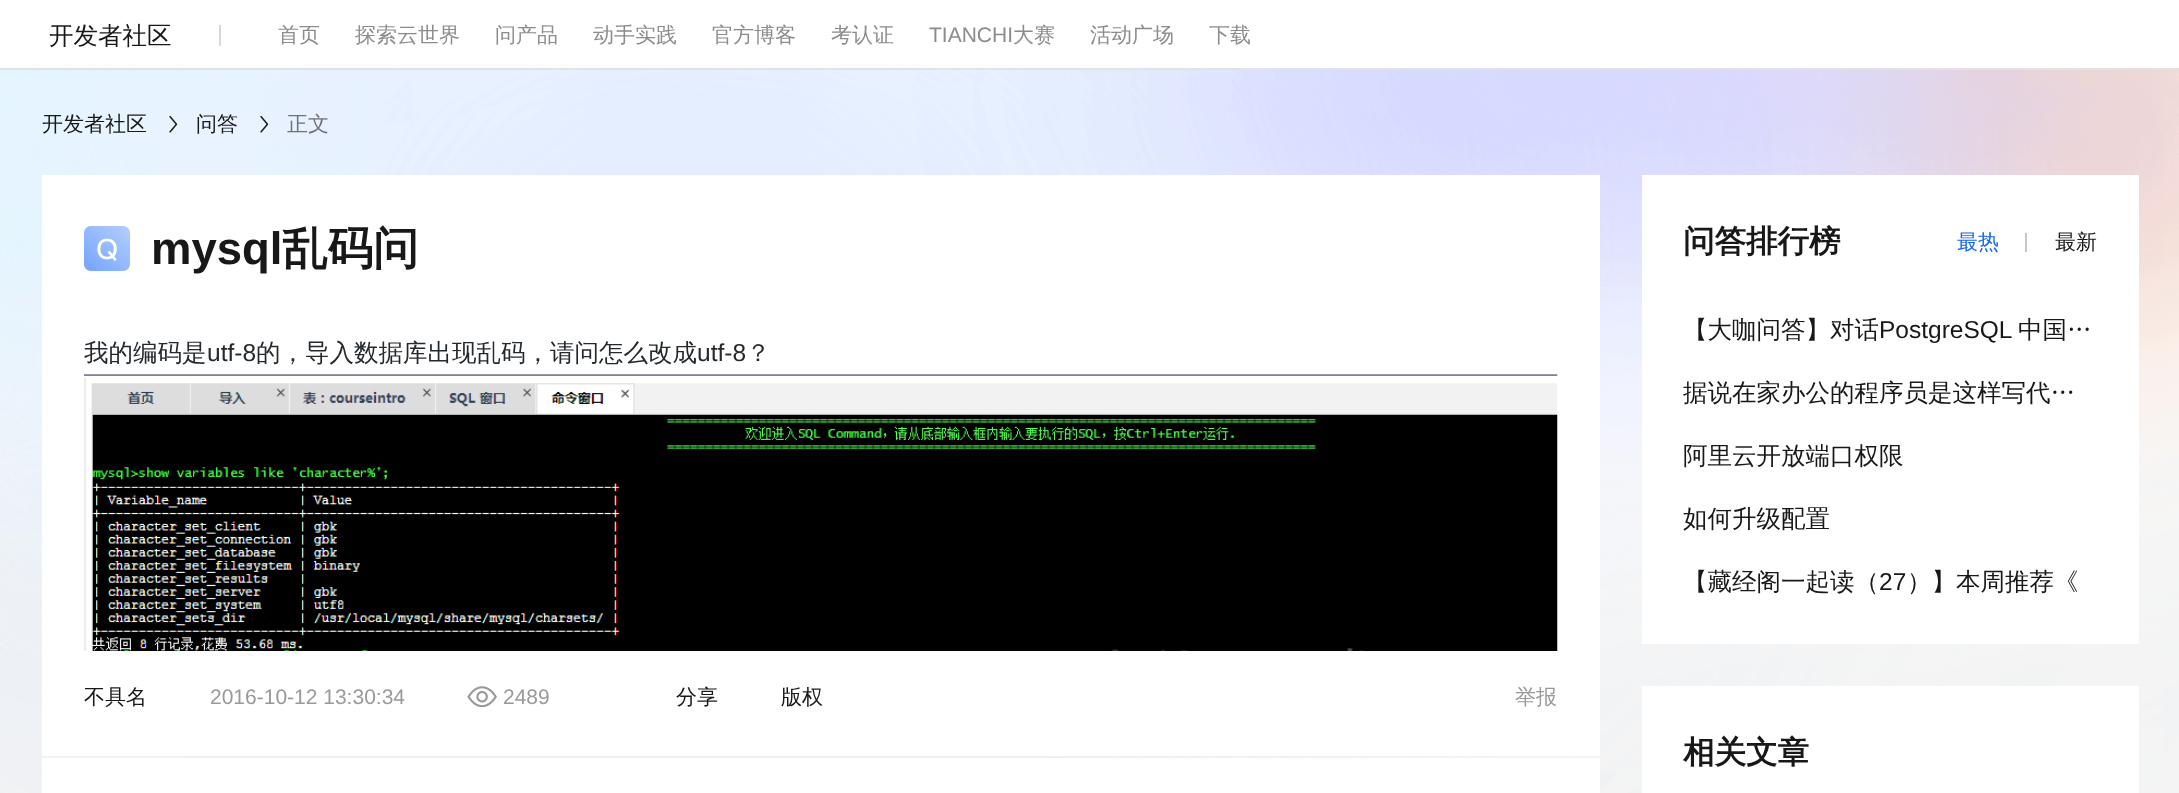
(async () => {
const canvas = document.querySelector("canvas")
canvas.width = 2179
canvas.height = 793
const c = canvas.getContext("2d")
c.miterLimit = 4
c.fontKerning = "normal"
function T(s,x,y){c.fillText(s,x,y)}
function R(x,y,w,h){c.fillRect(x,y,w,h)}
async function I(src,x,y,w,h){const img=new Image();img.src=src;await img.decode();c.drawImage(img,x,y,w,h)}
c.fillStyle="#f4f4f4"
R(0,0,2179,793)
c.fillStyle="#00000026"
c.filter="blur(3.5px)"
c.beginPath()
c.rect(4,7,2173,63)
c.fill()
c.filter="none"
c.fillStyle="#fff"
R(0,0,2179,68)
c.fillStyle="#e2e2e2"
R(0,68,2179,2)
c.font="500 24.5px WenQuanYi Zen Hei"
c.fillStyle="#181818"
T("开发者社区",49,44)
c.fillStyle="#d7d8d9"
R(219,25,2,21)
c.font="500 21px WenQuanYi Zen Hei"
c.fillStyle="#8c8c8c"
T("首页",278,42)
T("探索云世界",355,42)
T("问产品",495,42)
T("动手实践",593,42)
T("官方博客",712,42)
T("考认证",831,42)
c.font="21px Liberation Sans"
T("TIANCHI",929,42)
c.font="500 21px WenQuanYi Zen Hei"
T("大赛",1013,42)
T("活动广场",1090,42)
T("下载",1209,42)
await I("1.png",0,70,2179,723)
c.fillStyle="#181818"
T("开发者社区",42,131)
await I("2.png",169,115,9,18)
T("问答",196,131)
await I("3.png",260,115,9,18)
c.fillStyle="#717171"
T("正文",287,131)
c.fillStyle="#fff"
R(42,175,1558,581)
await I("4.png",84,226,46,45)
c.font="bold 45.5px Liberation Sans"
c.fillStyle="#181818"
T("mysql",151,264)
c.font="bold 45.5px WenQuanYi Zen Hei"
T("乱码问",282,264)
c.font="500 24.5px WenQuanYi Zen Hei"
c.fillStyle="#24292e"
T("我的编码是",84,361)
c.font="24.5px Liberation Sans"
T("utf-8",207,361)
c.font="500 24.5px WenQuanYi Zen Hei"
T("的，导入数据库出现乱码，请问怎么改成",256,361)
c.font="24.5px Liberation Sans"
T("utf-8",697,361)
c.font="500 24.5px WenQuanYi Zen Hei"
T("？",746,361)
await I("5.png",84,374,1474,277)
c.font="500 21px WenQuanYi Zen Hei"
c.fillStyle="#181818"
T("不具名",84,704)
c.font="21px Liberation Sans"
c.fillStyle="#999"
T("2016-10-12 13:30:34",210,704)
await I("6.png",467,686,30,21)
T("2489",503,704)
c.font="500 21px WenQuanYi Zen Hei"
c.fillStyle="#181818"
T("分享",676,704)
T("版权",781,704)
c.fillStyle="#999"
T("举报",1515,704)
c.fillStyle="#fff"
R(42,758,1558,35)
R(1642,175,497,469)
c.font="bold 31.5px WenQuanYi Zen Hei"
c.fillStyle="#181818"
T("问答排行榜",1683,252)
c.font="500 21px WenQuanYi Zen Hei"
c.fillStyle="#1366ec"
T("最热",1957,249)
c.fillStyle="#c6c9cc"
R(2025,233,2,19)
c.fillStyle="#181818"
T("最新",2055,249)
c.font="500 24.5px WenQuanYi Zen Hei"
T("【大咖问答】对话",1683,338)
c.font="24.5px Liberation Sans"
T("PostgreSQL",1879,338)
c.font="500 24.5px WenQuanYi Zen Hei"
T("中国…",2018,338)
T("据说在家办公的程序员是这样写代…",1683,401)
T("阿里云开放端口权限",1683,464)
T("如何升级配置",1683,527)
T("【藏经阁一起读（",1683,590)
c.font="24.5px Liberation Sans"
T("27",1879,590)
c.font="500 24.5px WenQuanYi Zen Hei"
T("）】本周推荐《",1907,590)
c.fillStyle="#fff"
R(1642,686,497,107)
c.font="bold 31.5px WenQuanYi Zen Hei"
c.fillStyle="#181818"
T("相关文章",1683,763)
})()
